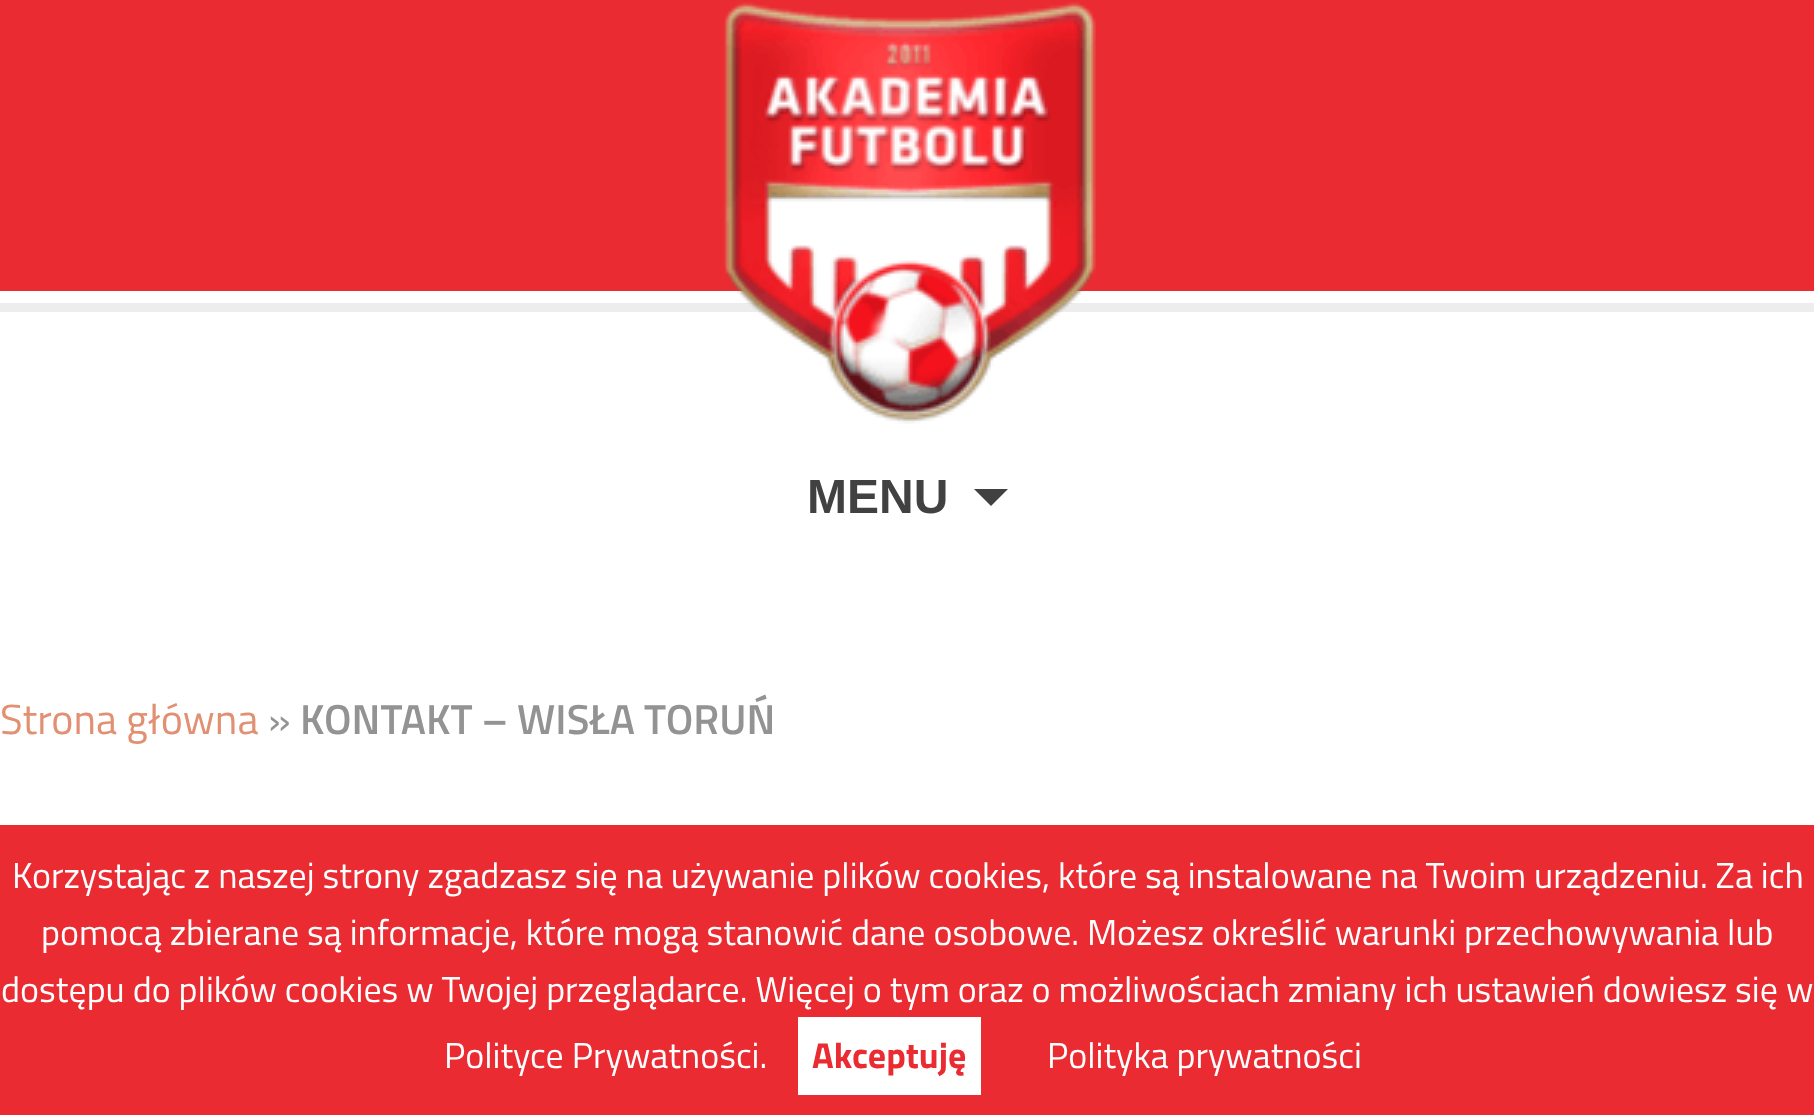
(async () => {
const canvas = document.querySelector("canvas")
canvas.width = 1814
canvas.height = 1115
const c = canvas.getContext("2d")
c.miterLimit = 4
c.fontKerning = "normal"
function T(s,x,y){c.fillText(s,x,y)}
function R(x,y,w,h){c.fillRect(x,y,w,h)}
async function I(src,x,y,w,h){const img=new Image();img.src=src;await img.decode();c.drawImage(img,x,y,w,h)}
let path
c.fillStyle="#fff"
R(0,0,1814,1115)
c.fillStyle="#eb2b32"
R(0,0,1814,291)
c.fillStyle="#ededed"
R(0,303,1814,9)
await I("1.png",723,2,373,422)
c.font="bold 48px Liberation Sans"
c.fillStyle="#414141"
T("MENU",807,513)
path = new Path2D("M974 489l17 17l17-17z")
c.fill(path)
c.font="42px Titillium Web"
c.fillStyle="#e19072"
T("Strona główna",0,734)
c.fillStyle="#939393"
T("»",268,734)
c.font="600 42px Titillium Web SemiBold"
T("KONTAKT – WISŁA TORUŃ",300,734)
c.fillStyle="#eb2b32"
R(0,825,1814,290)
c.font="36px Titillium Web"
c.fillStyle="#fff"
T("Korzystając z naszej strony zgadzasz się na używanie plików cookies, które są instalowane na Twoim urządzeniu. Za ich",12,888)
T("pomocą zbierane są informacje, które mogą stanowić dane osobowe. Możesz określić warunki przechowywania lub",41,945)
T("dostępu do plików cookies w Twojej przeglądarce. Więcej o tym oraz o możliwościach zmiany ich ustawień dowiesz się w",1,1002)
T("Polityce Prywatności.",444,1068)
R(798,1017,183,78)
c.font="bold 36px Titillium Web"
c.fillStyle="#eb2b32"
T("Akceptuję",812,1068)
c.font="36px Titillium Web"
c.fillStyle="#fff"
T("Polityka prywatności",1047,1068)
})()
